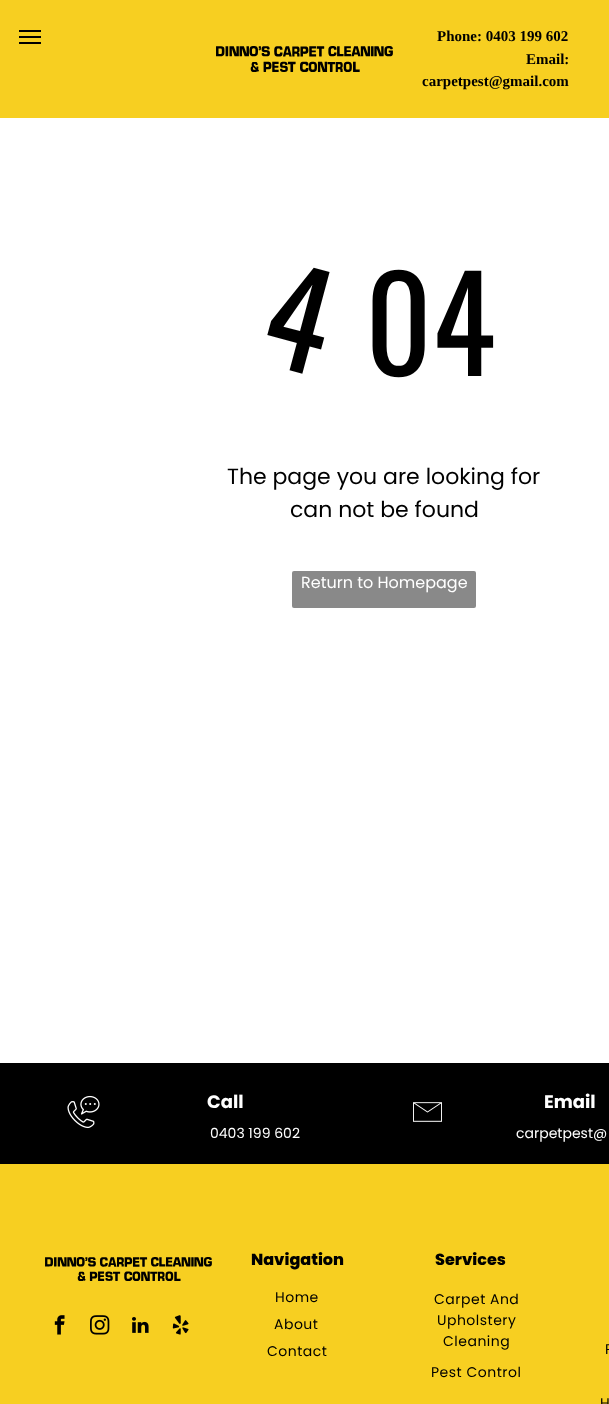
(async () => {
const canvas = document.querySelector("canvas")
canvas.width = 609
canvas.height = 1404
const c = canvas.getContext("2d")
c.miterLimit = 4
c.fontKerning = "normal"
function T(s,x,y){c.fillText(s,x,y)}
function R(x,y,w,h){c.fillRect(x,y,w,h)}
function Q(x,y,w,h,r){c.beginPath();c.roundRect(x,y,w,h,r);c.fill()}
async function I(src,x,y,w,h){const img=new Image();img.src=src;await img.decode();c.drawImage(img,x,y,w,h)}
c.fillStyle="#fff"
R(0,0,609,1404)
c.fillStyle="#f7cf21"
R(0,0,609,118)
c.fillStyle="#000"
R(19,30,22,2)
R(19,36,22,2)
R(19,42,22,2)
await I("1.png",216,46,177,26)
c.font="bold 15px Liberation Serif"
T("Phone: 0403 199 602",437,41)
T("Email:",526,64)
T("carpetpest@gmail.com",422,86)
c.font="130px Oswald"
c.save()
c.translate(255,361)
c.rotate(15 * Math.PI / 180)
c.fillText("4",0,0)
c.restore()
T("04",365,376)
c.font="22px Poppins"
T("The page you are looking for",227,484)
T("can not be found",290,517)
c.fillStyle="#898989"
Q(292,571,184,37,2)
c.font="16px Poppins"
c.fillStyle="#fff"
T("Return to Homepage",301,588)
c.fillStyle="#000"
R(0,1063,609,101)
await I("2.png",67,1095,33,34)
c.font="bold 18px Poppins"
c.fillStyle="#fff"
T("Call",207,1108)
c.font="14px Poppins"
T("0403 199 602",210,1138)
await I("3.png",413,1102,29,20)
c.font="bold 18px Poppins"
T("Email",544,1108)
c.font="14px Poppins"
T("carpetpest@",516,1138)
c.fillStyle="#f7cf21"
R(0,1164,609,240)
await I("4.png",45,1257,167,24)
await I("5.png",54,1315,11,20)
await I("6.png",90,1315,20,20)
await I("7.png",132,1317,17,16)
await I("8.png",172,1315,17,20)
c.font="800 16px Poppins"
c.fillStyle="#000"
T("Navigation",251,1265)
c.letterSpacing="0.5px"
c.font="14px Poppins"
T("Home",275,1302)
T("About",274,1329)
T("Contact",267,1356)
c.letterSpacing="0px"
c.font="800 16px Poppins"
T("Services",435,1265)
c.letterSpacing="0.5px"
c.font="14px Poppins"
T("Carpet And",434,1304)
T("Upholstery",437,1325)
T("Cleaning",443,1346)
T("Pest Control",431,1377)
T("P",605,1354)
T("H",600,1408)
})()
